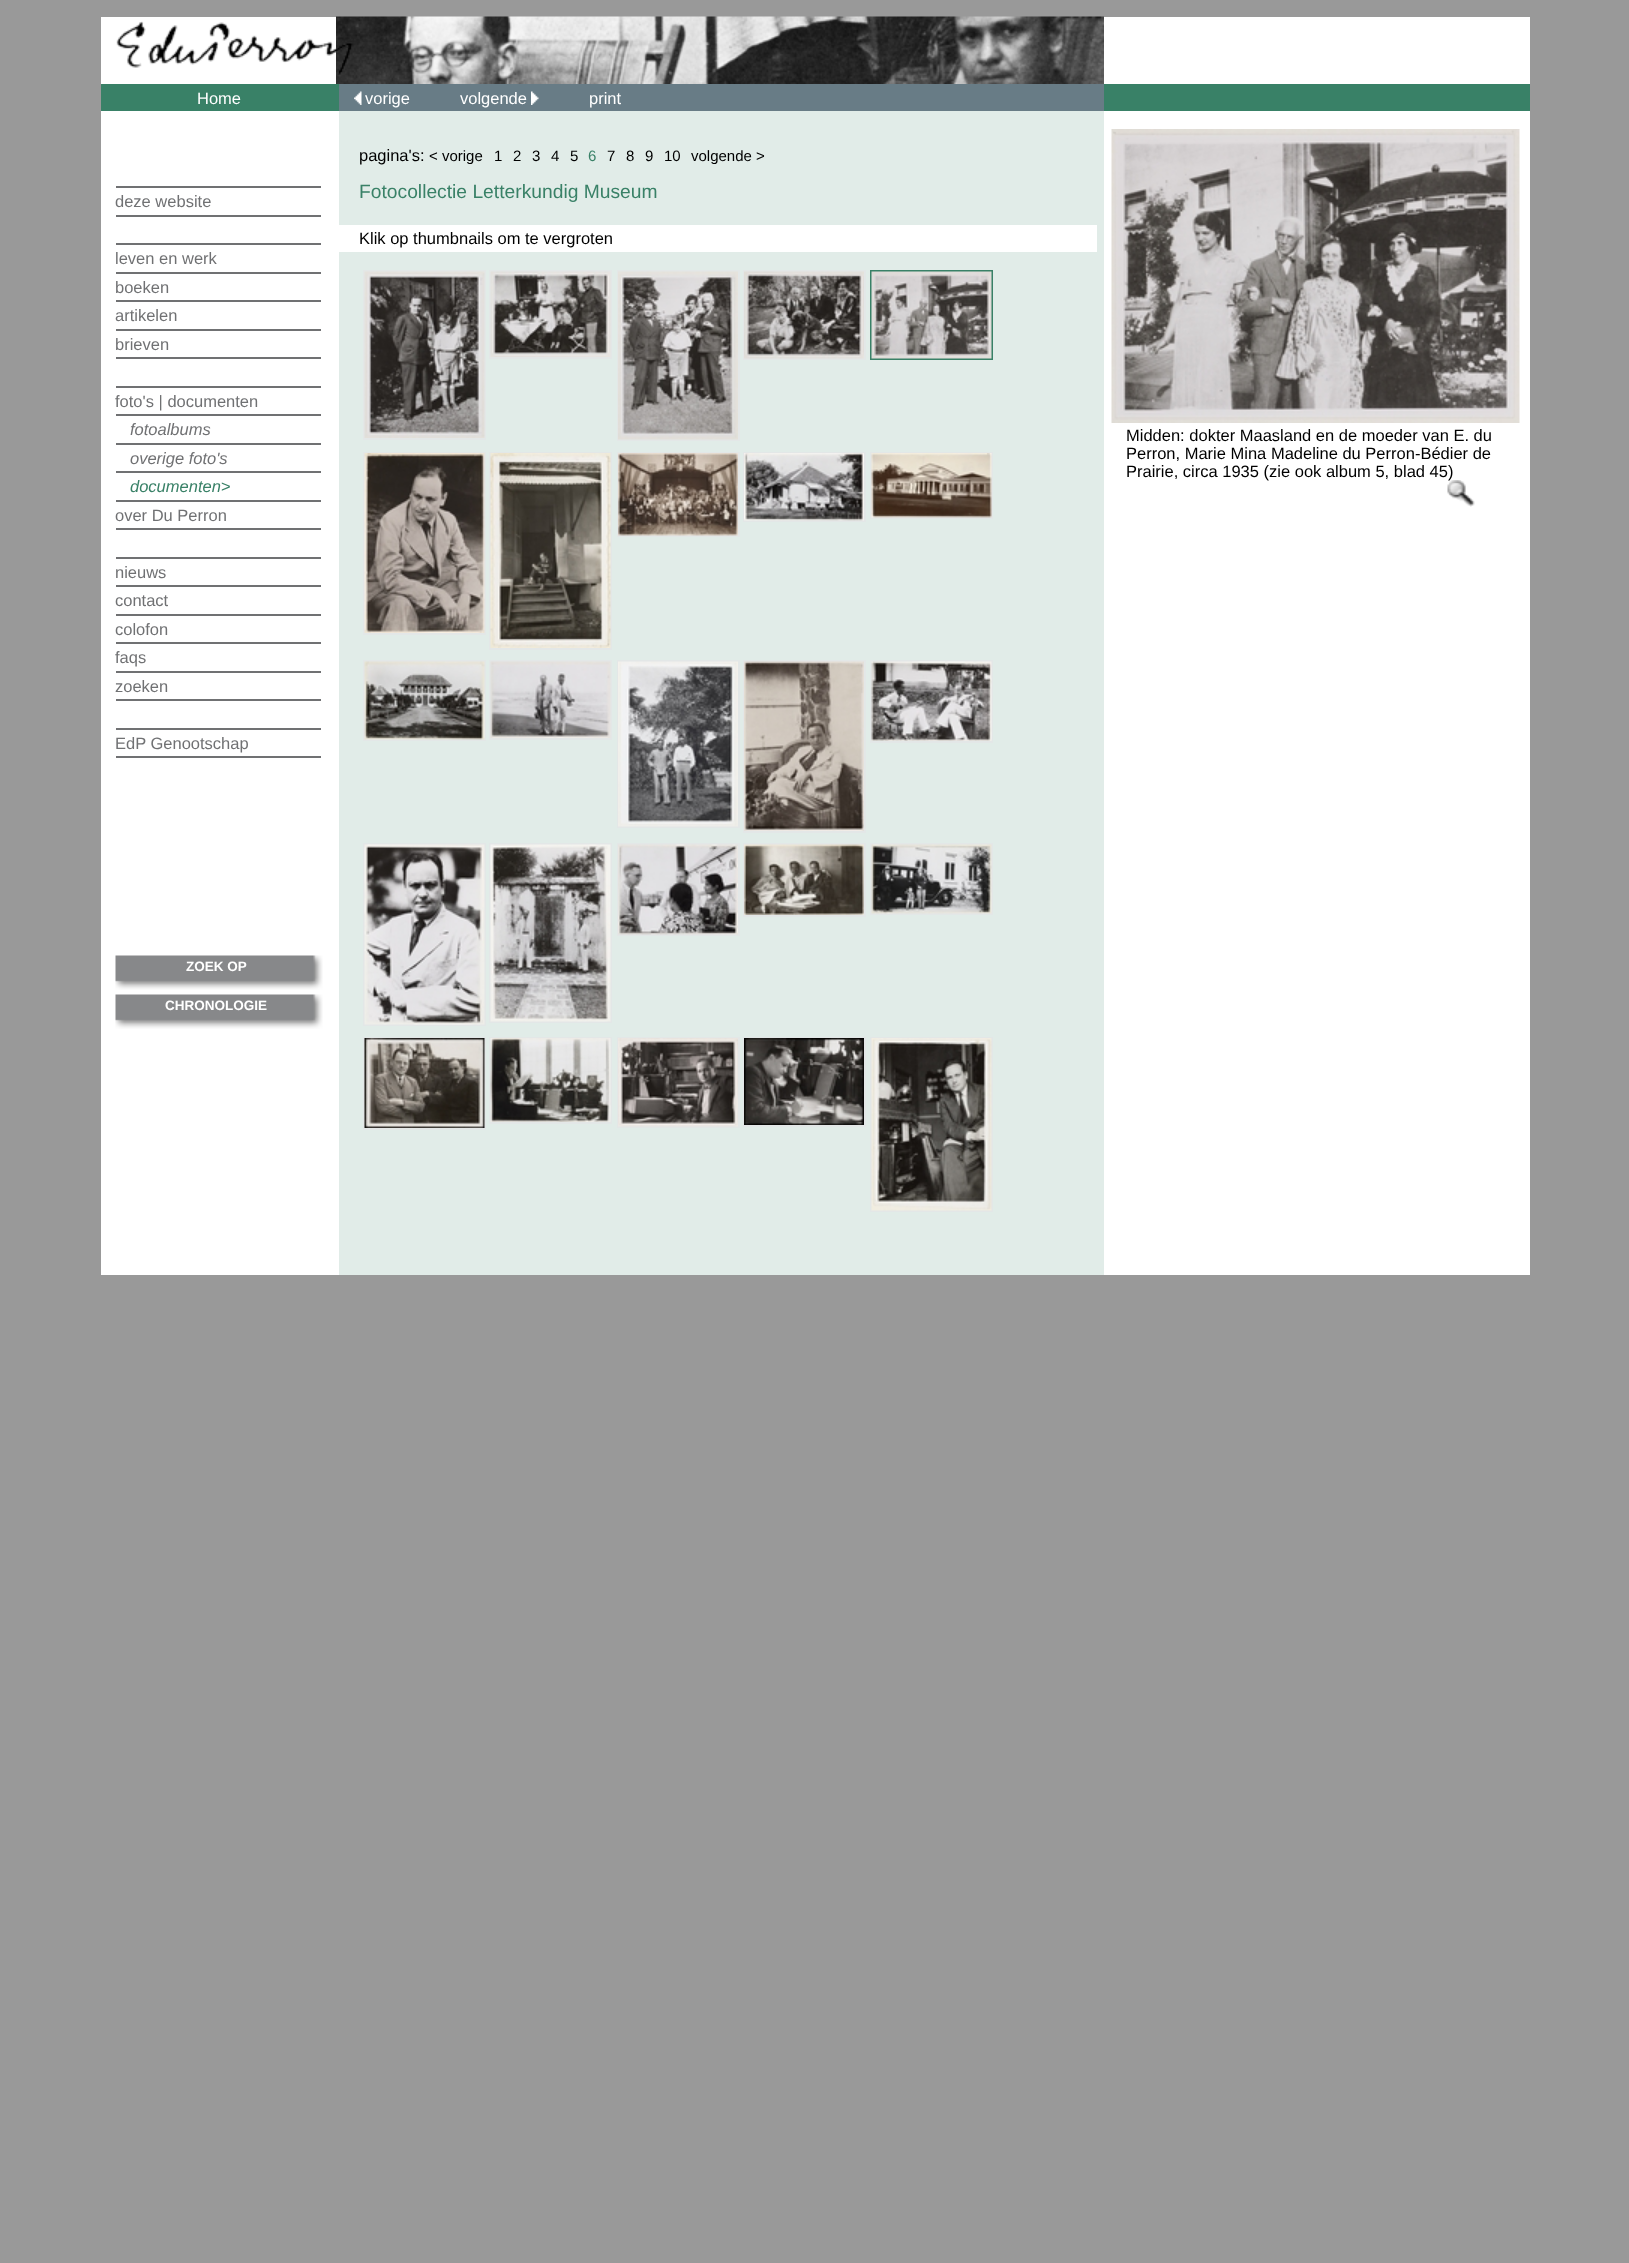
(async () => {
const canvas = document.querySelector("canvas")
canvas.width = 1629
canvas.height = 2263
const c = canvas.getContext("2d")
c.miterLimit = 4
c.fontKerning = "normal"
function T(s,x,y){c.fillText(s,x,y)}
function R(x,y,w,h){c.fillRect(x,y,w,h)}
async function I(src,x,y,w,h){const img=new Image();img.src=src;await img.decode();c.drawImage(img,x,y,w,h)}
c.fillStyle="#999"
R(0,0,1629,2263)
c.fillStyle="#fff"
R(101,17,1429,1258)
await I("1.png",336,16,768,68)
await I("2.png",116,21,237,54)
c.fillStyle="#398167"
R(101,84,238,27)
c.font="16.5px Liberation Sans"
c.fillStyle="#fff"
T("Home",197,104)
c.fillStyle="#707173"
R(116,186,205,2)
T("deze website",115,207)
R(116,215,205,2)
R(116,243,205,2)
T("leven en werk",115,264)
R(116,272,205,2)
T("boeken",115,293)
R(116,300,205,2)
T("artikelen",115,321)
R(116,329,205,2)
T("brieven",115,350)
R(116,357,205,2)
R(116,386,205,2)
T("foto's | documenten",115,407)
R(116,414,205,2)
c.font="italic 16.5px Liberation Sans"
T("fotoalbums",130,435)
R(116,443,205,2)
T("overige foto's",130,464)
R(116,471,205,2)
c.fillStyle="#398167"
T("documenten>",130,492)
c.fillStyle="#707173"
R(116,500,205,2)
c.font="16.5px Liberation Sans"
T("over Du Perron",115,521)
R(116,528,205,2)
R(116,557,205,2)
T("nieuws",115,578)
R(116,585,205,2)
T("contact",115,606)
R(116,614,205,2)
T("colofon",115,635)
R(116,642,205,2)
T("faqs",115,663)
R(116,671,205,2)
T("zoeken",115,692)
R(116,699,205,2)
R(116,728,205,2)
T("EdP Genootschap",115,749)
R(116,756,205,2)
c.fillStyle="#e1ece8"
R(339,111,765,1164)
c.fillStyle="#687c86"
R(339,84,765,27)
await I("3.png",354,91,8,14)
c.fillStyle="#fff"
T("vorige",365,104)
T("volgende",460,104)
await I("4.png",531,91,8,14)
T("print",589,104)
c.fillStyle="#000"
T("pagina's:",359,161)
c.font="15px Liberation Sans"
T("< vorige",429,161)
T("1",494,161)
T("2",513,161)
T("3",532,161)
T("4",551,161)
T("5",570,161)
c.fillStyle="#398167"
T("6",588,161)
c.fillStyle="#000"
T("7",607,161)
T("8",626,161)
T("9",645,161)
T("10",664,161)
T("volgende >",691,161)
c.font="19.25px Liberation Sans"
c.fillStyle="#398167"
T("Fotocollectie Letterkundig Museum",359,198)
c.fillStyle="#fff"
R(339,225,758,27)
c.font="16.5px Liberation Sans"
c.fillStyle="#000"
T("Klik op thumbnails om te vergroten",359,244)
c.strokeStyle="#e3e7e7"
c.lineWidth=2
c.strokeRect(364,271,121,168)
await I("5.png",364,271,121,167)
c.strokeRect(490,271,121,87)
await I("6.png",490,271,121,86)
c.strokeRect(618,271,121,169)
await I("7.png",618,271,120,169)
c.strokeRect(744,271,121,88)
await I("8.png",744,271,120,88)
c.strokeStyle="#398167"
c.strokeRect(871,271,121,88)
await I("9.png",871,271,121,88)
c.strokeStyle="#e3e7e7"
c.strokeRect(364,453,121,181)
await I("10.png",364,453,121,180)
c.strokeRect(490,453,121,196)
await I("11.png",490,453,121,195)
c.strokeRect(618,453,121,83)
await I("12.png",618,453,120,83)
c.strokeRect(744,453,121,68)
await I("13.png",744,453,120,68)
c.strokeRect(871,453,121,65)
await I("14.png",871,453,121,65)
c.strokeRect(364,661,121,79)
await I("15.png",364,661,121,79)
c.strokeRect(490,661,121,78)
await I("16.png",490,661,121,77)
c.strokeRect(618,661,121,166)
await I("17.png",618,661,120,166)
c.strokeRect(744,661,121,171)
await I("18.png",744,661,120,170)
c.strokeRect(871,661,121,81)
await I("19.png",871,661,121,80)
c.strokeRect(364,844,121,181)
await I("20.png",364,844,121,181)
c.strokeRect(490,844,121,178)
await I("21.png",490,844,121,178)
c.strokeRect(618,844,121,91)
await I("22.png",618,844,120,91)
c.strokeRect(744,844,121,72)
await I("23.png",744,844,120,71)
c.strokeRect(871,844,121,70)
await I("24.png",871,844,121,70)
c.strokeRect(364,1038,121,91)
await I("25.png",364,1038,121,90)
c.strokeRect(490,1038,121,85)
await I("26.png",490,1038,121,84)
c.strokeRect(618,1038,121,89)
await I("27.png",618,1038,120,89)
c.strokeRect(744,1038,121,88)
await I("28.png",744,1038,120,87)
c.strokeRect(871,1038,121,173)
await I("29.png",871,1038,121,173)
c.fillStyle="#398167"
R(1104,84,426,27)
await I("30.png",1111,129,409,294)
c.fillStyle="#000"
T("Midden: dokter Maasland en de moeder van E. du",1126,441)
T("Perron, Marie Mina Madeline du Perron-Bédier de",1126,459)
await I("31.png",1447,480,28,27)
T("Prairie, circa 1935 (zie ook album 5, blad 45)",1126,477)
await I("32.png",115,955,208,35)
c.font="bold 13.5px Liberation Sans"
c.fillStyle="#fff"
T("ZOEK OP",186,971)
await I("32.png",115,994,208,35)
T("CHRONOLOGIE",165,1010)
})()
